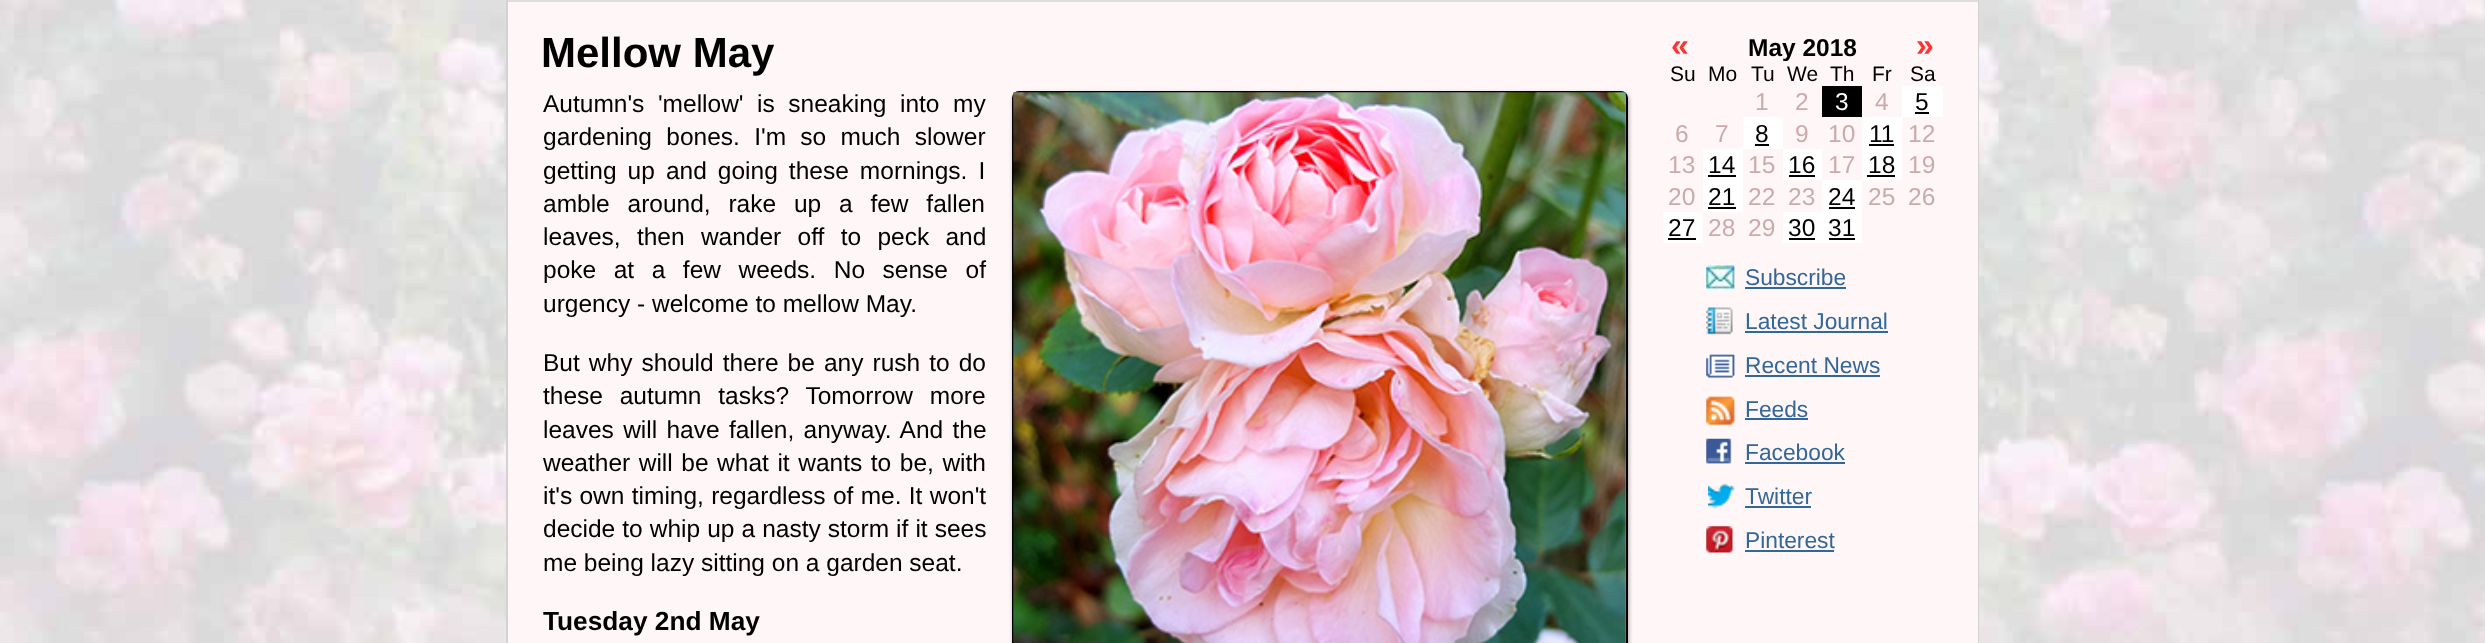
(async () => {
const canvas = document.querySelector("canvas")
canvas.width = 2485
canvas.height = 643
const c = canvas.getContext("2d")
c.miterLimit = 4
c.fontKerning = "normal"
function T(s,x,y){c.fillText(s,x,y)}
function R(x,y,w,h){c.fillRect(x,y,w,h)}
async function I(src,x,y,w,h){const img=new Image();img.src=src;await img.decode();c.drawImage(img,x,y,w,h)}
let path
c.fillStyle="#fff"
R(0,0,2485,643)
await I("1.png",0,0,2485,643)
c.fillStyle="#fff7f7"
R(508,2,1470,641)
c.fillStyle="#d2d2d2"
path = new Path2D("M506-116h1473v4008c0 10-8 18-17 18h-1439c-9 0-17-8-17-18zm2 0h1470v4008c0 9-8 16-16 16h-1439c-8 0-15-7-15-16z")
c.fill(path,"evenodd")
await I("2.png",507,0,1,2)
c.fillStyle="#ddd"
R(508,0,1470,2)
c.font="bold 42px Liberation Sans"
c.fillStyle="#000"
T("Mellow May",541,67)
c.wordSpacing="6.75px"
c.font="24.5px Liberation Sans"
T("Autumn's 'mellow' is sneaking into my",543,112)
c.wordSpacing="7.5px"
T("gardening bones. I'm so much slower",543,145)
c.wordSpacing="4.25px"
T("getting up and going these mornings. I",543,179)
c.wordSpacing="11px"
T("amble around, rake up a few fallen",543,212)
c.wordSpacing="9.5px"
T("leaves, then wander off to peck and",543,245)
c.wordSpacing="10.75px"
T("poke at a few weeds. No sense of",543,278)
c.wordSpacing="0px"
T("urgency - welcome to mellow May.",543,312)
c.fillStyle="#0000004d"
c.filter="blur(2px)"
c.beginPath()
c.roundRect(1013,93,616,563,7)
c.fill()
c.filter="none"
c.beginPath()
c.roundRect(1013,92,614,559,6)
c.strokeStyle="#000"
c.lineWidth=2
c.stroke()
await I("3.png",1013,92,613,551)
c.wordSpacing="2.25px"
c.fillStyle="#000"
T("But why should there be any rush to do",543,371)
c.wordSpacing="10px"
T("these autumn tasks? Tomorrow more",543,404)
c.wordSpacing="2.5px"
T("leaves will have fallen, anyway. And the",543,438)
c.wordSpacing="1.75px"
T("weather will be what it wants to be, with",543,471)
c.wordSpacing="0.5px"
T("it's own timing, regardless of me. It won't",543,504)
c.wordSpacing="0.25px"
T("decide to whip up a nasty storm if it sees",543,537)
c.wordSpacing="0px"
T("me being lazy sitting on a garden seat.",543,571)
c.font="bold 26.25px Liberation Sans"
T("Tuesday 2nd May",543,630)
c.font="bold 32px Liberation Sans"
c.fillStyle="#f33"
T("«",1671,56)
c.font="bold 24.5px Liberation Sans"
c.fillStyle="#000"
T("May 2018",1748,56)
c.font="bold 32px Liberation Sans"
c.fillStyle="#f33"
T("»",1916,56)
c.font="21px Liberation Sans"
c.fillStyle="#000"
T("Su",1670,81)
T("Mo",1708,81)
T("Tu",1751,81)
T("We",1787,81)
T("Th",1830,81)
T("Fr",1872,81)
T("Sa",1910,81)
c.font="24.5px Liberation Sans"
c.fillStyle="#caa"
T("1",1755,110)
T("2",1795,110)
c.fillStyle="#000"
R(1822,86,40,31)
c.fillStyle="#fff"
T("3",1835,110)
c.fillStyle="#caa"
T("4",1875,110)
c.fillStyle="#fff"
R(1902,86,41,31)
c.fillStyle="#000"
T("5",1915,110)
R(1915,112,14,2)
c.fillStyle="#caa"
T("6",1675,142)
T("7",1715,142)
c.fillStyle="#fff"
R(1743,117,40,32)
c.fillStyle="#000"
T("8",1755,142)
R(1755,144,14,2)
c.fillStyle="#caa"
T("9",1795,142)
T("10",1828,142)
c.fillStyle="#fff"
R(1862,117,40,63)
c.fillStyle="#000"
T("11",1869,142)
R(1869,144,25,2)
c.fillStyle="#caa"
T("12",1908,142)
T("13",1668,173)
c.fillStyle="#fff"
R(1703,149,40,63)
c.fillStyle="#000"
T("14",1708,173)
R(1708,175,28,2)
c.fillStyle="#caa"
T("15",1748,173)
c.fillStyle="#fff"
R(1783,149,39,31)
c.fillStyle="#000"
T("16",1788,173)
R(1789,175,26,2)
c.fillStyle="#caa"
T("17",1828,173)
c.fillStyle="#000"
T("18",1868,173)
R(1867,175,28,2)
c.fillStyle="#caa"
T("19",1908,173)
T("20",1668,205)
c.fillStyle="#000"
T("21",1708,205)
R(1708,207,28,2)
c.fillStyle="#caa"
T("22",1748,205)
T("23",1788,205)
c.fillStyle="#fff"
R(1822,180,40,32)
c.fillStyle="#000"
T("24",1828,205)
R(1829,207,26,2)
c.fillStyle="#caa"
T("25",1868,205)
T("26",1908,205)
c.fillStyle="#fff"
R(1663,212,40,31)
c.fillStyle="#000"
T("27",1668,236)
R(1668,238,28,2)
c.fillStyle="#caa"
T("28",1708,236)
T("29",1748,236)
c.fillStyle="#fff"
R(1783,212,79,31)
c.fillStyle="#000"
T("30",1788,236)
R(1789,238,26,2)
T("31",1828,236)
R(1829,238,26,2)
await I("4.png",1706,265,29,26)
c.font="22.75px Liberation Sans"
c.fillStyle="#369"
T("Subscribe",1745,285)
R(1745,287,101,2)
await I("5.png",1706,307,27,28)
T("Latest Journal",1745,329)
R(1745,331,143,2)
await I("6.png",1706,354,29,24)
T("Recent News",1745,373)
R(1745,375,135,2)
await I("7.png",1706,396,29,30)
T("Feeds",1745,417)
R(1745,418,63,2)
await I("8.png",1706,438,26,26)
T("Facebook",1745,460)
R(1745,462,100,2)
await I("9.png",1708,483,27,26)
T("Twitter",1745,504)
R(1745,506,66,2)
await I("10.png",1706,526,27,27)
T("Pinterest",1745,548)
R(1745,550,89,2)
})()
